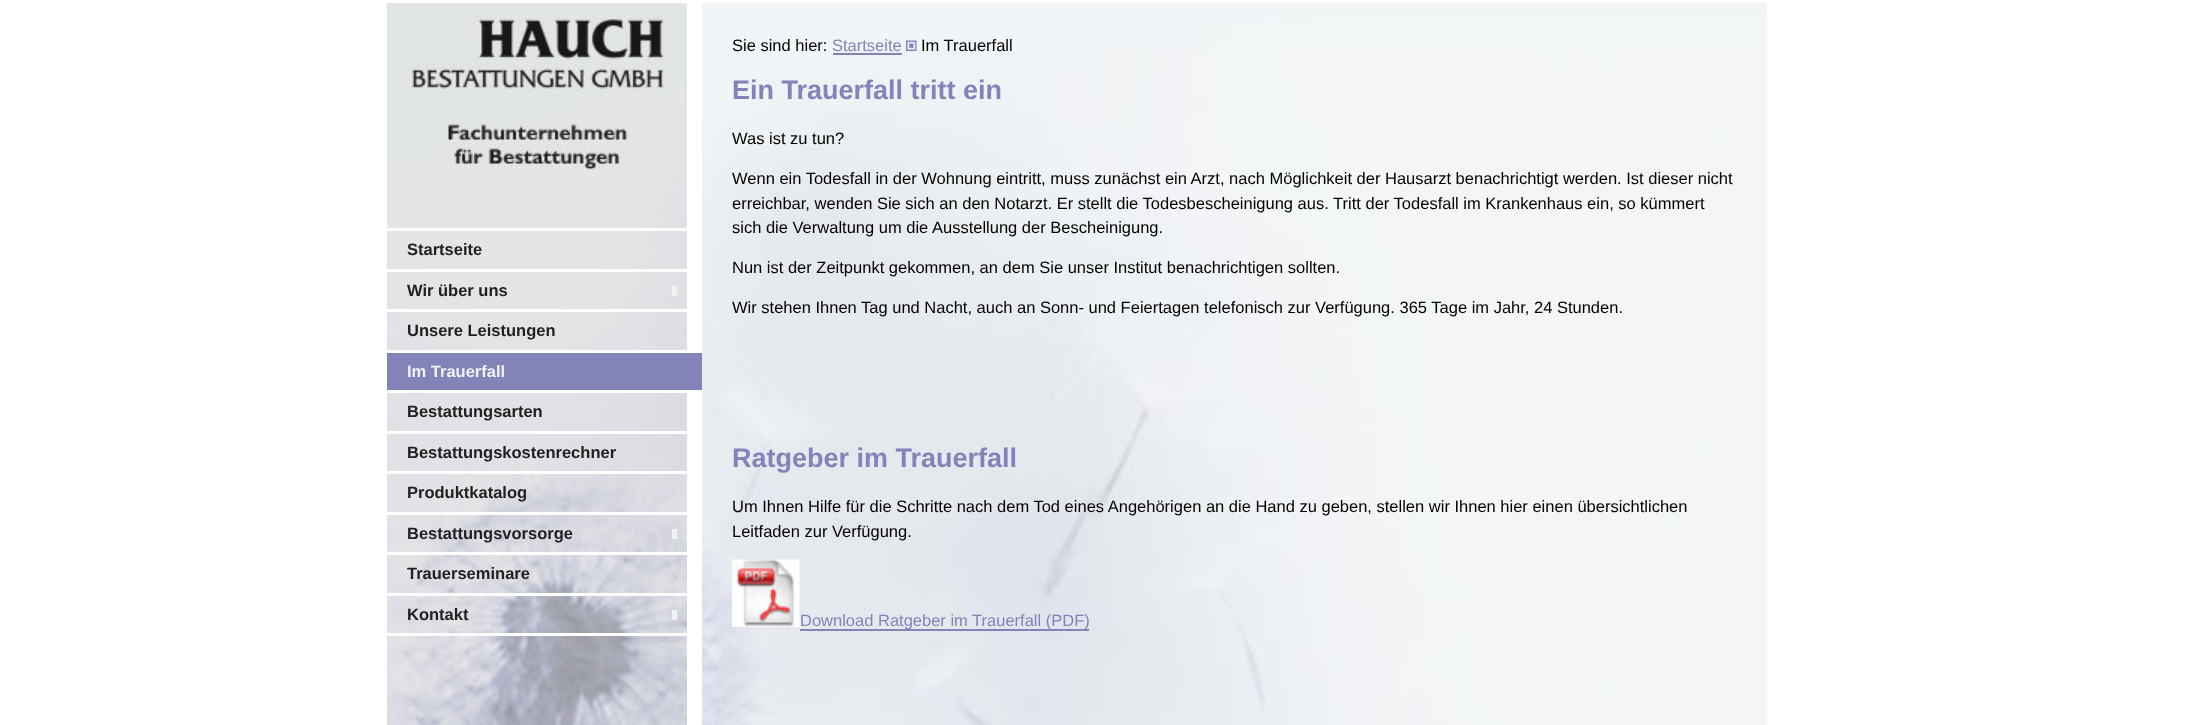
(async () => {
const canvas = document.querySelector("canvas")
canvas.width = 2199
canvas.height = 725
const c = canvas.getContext("2d")
c.miterLimit = 4
c.fontKerning = "normal"
function T(s,x,y){c.fillText(s,x,y)}
function R(x,y,w,h){c.fillRect(x,y,w,h)}
async function I(src,x,y,w,h){const img=new Image();img.src=src;await img.decode();c.drawImage(img,x,y,w,h)}
c.fillStyle="#fff"
R(0,0,2199,725)
await I("1.png",702,3,1065,722)
await I("2.png",387,3,300,722)
R(387,633,300,3)
R(387,228,300,3)
c.font="bold 16.5px Liberation Sans"
c.fillStyle="#212022"
T("Startseite",407,255)
c.fillStyle="#f0f2f1"
R(672,286,5,10)
c.fillStyle="#fff"
R(387,269,300,3)
c.fillStyle="#212022"
T("Wir über uns",407,296)
c.fillStyle="#fff"
R(387,309,300,3)
c.fillStyle="#212022"
T("Unsere Leistungen",407,336)
c.fillStyle="#8483b9"
R(387,353,315,37)
c.fillStyle="#fff"
R(387,350,300,3)
c.fillStyle="#f0f1f1"
T("Im Trauerfall",407,377)
c.fillStyle="#fff"
R(387,390,300,3)
c.fillStyle="#212022"
T("Bestattungsarten",407,417)
c.fillStyle="#fff"
R(387,431,300,3)
c.fillStyle="#212022"
T("Bestattungskostenrechner",407,458)
c.fillStyle="#fff"
R(387,471,300,3)
c.fillStyle="#212022"
T("Produktkatalog",407,498)
c.fillStyle="#f0f2f1"
R(672,529,5,10)
c.fillStyle="#fff"
R(387,512,300,3)
c.fillStyle="#212022"
T("Bestattungsvorsorge",407,539)
c.fillStyle="#fff"
R(387,552,300,3)
c.fillStyle="#212022"
T("Trauerseminare",407,579)
c.fillStyle="#f0f2f1"
R(672,610,5,10)
c.fillStyle="#fff"
R(387,593,300,3)
c.fillStyle="#212022"
T("Kontakt",407,620)
c.font="16.5px Liberation Sans"
c.fillStyle="#000"
T("Sie sind hier:",732,51)
c.fillStyle="#8483b9"
T("Startseite",832,51)
R(833,53,69,2)
await I("3.png",906,40,11,11)
c.fillStyle="#000"
T("Im Trauerfall",921,51)
c.font="bold 27px Liberation Sans"
c.fillStyle="#8483b9"
T("Ein Trauerfall tritt ein",732,99)
c.font="16.5px Liberation Sans"
c.fillStyle="#000"
T("Was ist zu tun?",732,144)
T("Wenn ein Todesfall in der Wohnung eintritt, muss zunächst ein Arzt, nach Möglichkeit der Hausarzt benachrichtigt werden. Ist dieser nicht",732,184)
T("erreichbar, wenden Sie sich an den Notarzt. Er stellt die Todesbescheinigung aus. Tritt der Todesfall im Krankenhaus ein, so kümmert",732,209)
T("sich die Verwaltung um die Ausstellung der Bescheinigung.",732,233)
T("Nun ist der Zeitpunkt gekommen, an dem Sie unser Institut benachrichtigen sollten.",732,273)
T("Wir stehen Ihnen Tag und Nacht, auch an Sonn- und Feiertagen telefonisch zur Verfügung. 365 Tage im Jahr, 24 Stunden.",732,313)
c.font="bold 27px Liberation Sans"
c.fillStyle="#8483b9"
T("Ratgeber im Trauerfall",732,467)
c.font="16.5px Liberation Sans"
c.fillStyle="#000"
T("Um Ihnen Hilfe für die Schritte nach dem Tod eines Angehörigen an die Hand zu geben, stellen wir Ihnen hier einen übersichtlichen",732,512)
T("Leitfaden zur Verfügung.",732,537)
await I("4.png",732,559,68,68)
c.fillStyle="#8483b9"
R(800,629,289,2)
T("Download Ratgeber im Trauerfall (PDF)",800,626)
})()
